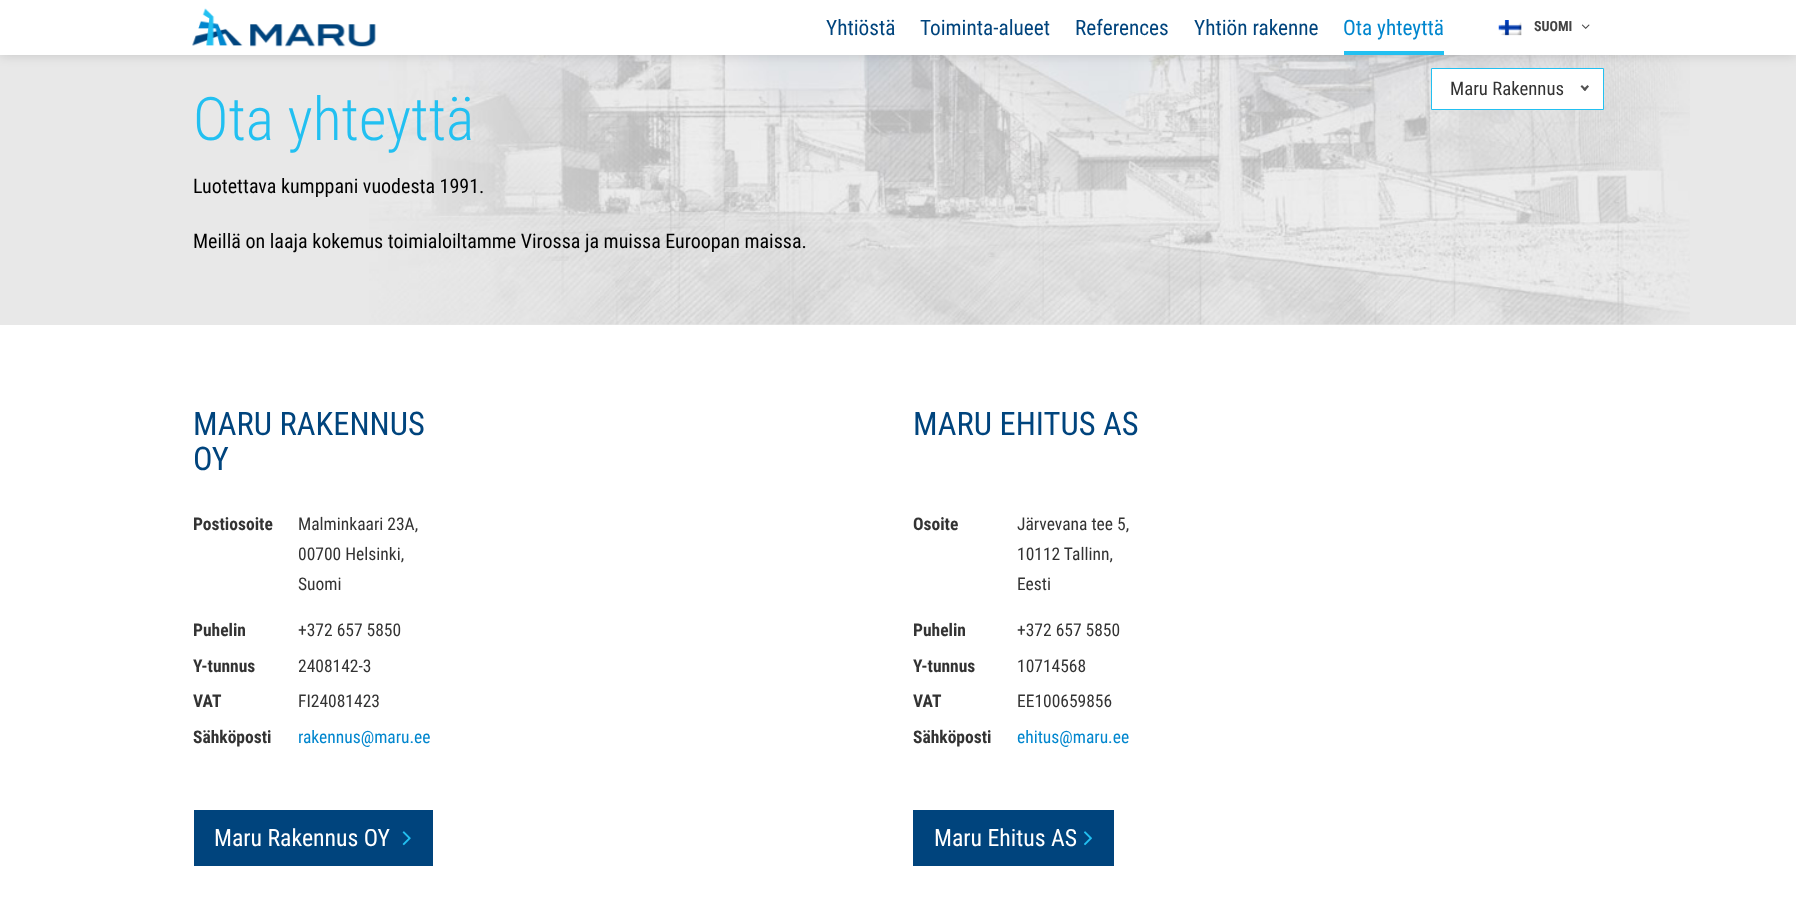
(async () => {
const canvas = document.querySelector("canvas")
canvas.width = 1796
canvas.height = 917
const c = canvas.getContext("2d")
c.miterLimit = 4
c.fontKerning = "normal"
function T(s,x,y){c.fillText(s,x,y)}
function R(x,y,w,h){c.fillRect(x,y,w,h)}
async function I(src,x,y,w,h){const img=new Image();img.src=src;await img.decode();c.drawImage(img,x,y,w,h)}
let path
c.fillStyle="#fff"
R(0,0,1796,917)
c.fillStyle="#e8e8e8"
R(0,55,1796,270)
await I("4.png",369,55,1321,270)
c.fillStyle="#00000026"
c.filter="blur(6px)"
c.beginPath()
c.rect(0,0,1796,55)
c.fill()
c.filter="none"
c.fillStyle="#fff"
R(0,0,1796,55)
await I("1.png",192,8,184,39)
c.font="21.25px Roboto Condensed"
c.fillStyle="#00447d"
T("Yhtiöstä",826,35)
T("Toiminta-alueet",920,35)
T("References",1075,35)
T("Yhtiön rakenne",1194,35)
c.fillStyle="#0086ce"
T("Ota yhteyttä",1343,35)
c.fillStyle="#22c0f1"
R(1344,51,100,4)
await I("2.png",1498,20,24,16)
c.font="bold 14px Roboto Condensed"
c.fillStyle="#444"
T("SUOMI",1534,31)
await I("3.png",1581,24,9,5)
c.fillStyle="#fff"
c.beginPath()
c.rect(1431.5,68.5,172,41)
c.fill()
c.strokeStyle="#22c0f1"
c.stroke()
c.font="18.75px Roboto Condensed"
c.fillStyle="#333"
T("Maru Rakennus",1450,95)
c.fillStyle="#535353"
path = new Path2D("M1587.5 85l1.5 1.5l-4 4.5l-2-1.5z")
c.fill(path)
path = new Path2D("M1582 85l4.5 4.5l-1.5 1.5l-4.5-4.5z")
c.fill(path)
c.font="300 60px Roboto Condensed"
c.fillStyle="#22c0f1"
T("Ota yhteyttä",193,140)
c.font="20px Roboto Condensed"
c.fillStyle="#000"
T("Luotettava kumppani vuodesta 1991.",193,193)
T("Meillä on laaja kokemus toimialoiltamme Virossa ja muissa Euroopan maissa.",193,248)
c.font="32.5px Roboto Condensed"
c.fillStyle="#00447d"
T("MARU RAKENNUS",193,435)
T("OY",193,470)
c.font="bold 17.5px Roboto Condensed"
c.fillStyle="#333"
T("Postiosoite",193,530)
c.font="17.5px Roboto Condensed"
T("Malminkaari 23A,",298,530)
T("00700 Helsinki,",298,560)
T("Suomi",298,590)
c.font="bold 17.5px Roboto Condensed"
T("Puhelin",193,636)
c.font="17.5px Roboto Condensed"
T("+372 657 5850",298,636)
c.font="bold 17.5px Roboto Condensed"
T("Y-tunnus",193,672)
c.font="17.5px Roboto Condensed"
T("2408142-3",298,672)
c.font="bold 17.5px Roboto Condensed"
T("VAT",193,707)
c.font="17.5px Roboto Condensed"
T("FI24081423",298,707)
c.font="bold 17.5px Roboto Condensed"
T("Sähköposti",193,743)
c.font="17.5px Roboto Condensed"
c.fillStyle="#0086ce"
T("rakennus@maru.ee",298,743)
c.fillStyle="#00447d"
R(194,810,239,56)
c.font="23.75px Roboto Condensed"
c.fillStyle="#fff"
T("Maru Rakennus OY",214,846)
await I("5.png",402,831,9,15)
c.font="32.5px Roboto Condensed"
c.fillStyle="#00447d"
T("MARU EHITUS AS",913,435)
c.font="bold 17.5px Roboto Condensed"
c.fillStyle="#333"
T("Osoite",913,530)
c.font="17.5px Roboto Condensed"
T("Järvevana tee 5,",1017,530)
T("10112 Tallinn,",1017,560)
T("Eesti",1017,590)
c.font="bold 17.5px Roboto Condensed"
T("Puhelin",913,636)
c.font="17.5px Roboto Condensed"
T("+372 657 5850",1017,636)
c.font="bold 17.5px Roboto Condensed"
T("Y-tunnus",913,672)
c.font="17.5px Roboto Condensed"
T("10714568",1017,672)
c.font="bold 17.5px Roboto Condensed"
T("VAT",913,707)
c.font="17.5px Roboto Condensed"
T("EE100659856",1017,707)
c.font="bold 17.5px Roboto Condensed"
T("Sähköposti",913,743)
c.font="17.5px Roboto Condensed"
c.fillStyle="#0086ce"
T("ehitus@maru.ee",1017,743)
c.fillStyle="#00447d"
R(913,810,201,56)
c.font="23.75px Roboto Condensed"
c.fillStyle="#fff"
T("Maru Ehitus AS",934,846)
await I("6.png",1084,831,8,15)
})()
